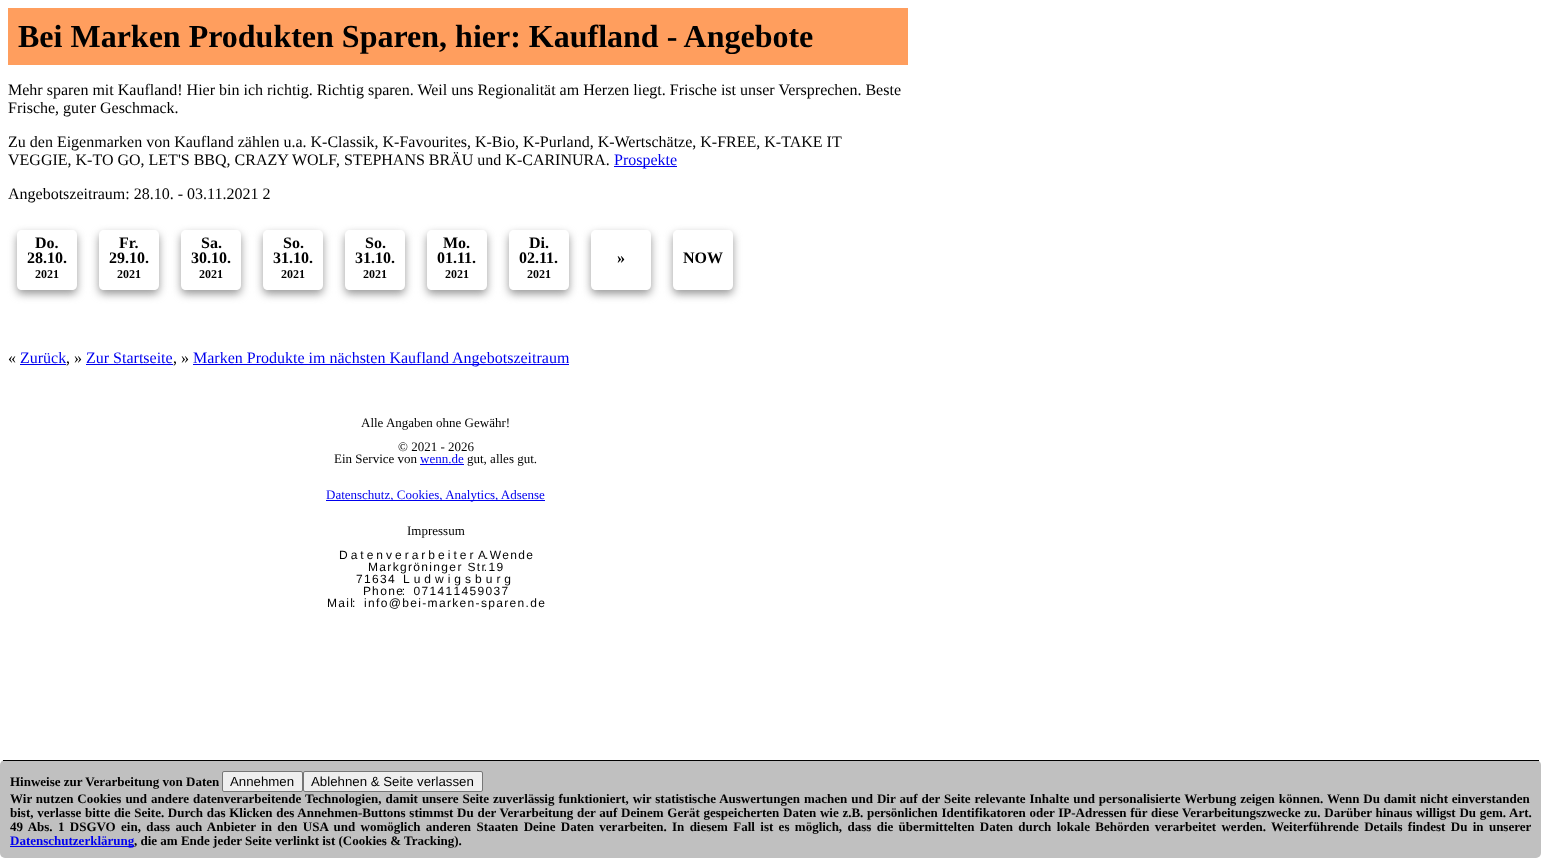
(async () => {
const canvas = document.querySelector("canvas")
canvas.width = 1541
canvas.height = 858
const c = canvas.getContext("2d")
c.miterLimit = 4
c.fontKerning = "normal"
function T(s,x,y){c.fillText(s,x,y)}
function R(x,y,w,h){c.fillRect(x,y,w,h)}
function Q(x,y,w,h,r){c.beginPath();c.roundRect(x,y,w,h,r);c.fill()}
let path
c.fillStyle="#fff"
R(0,0,1541,858)
c.fillStyle="#ff9e5e"
R(8,8,900,57)
c.font="bold 32px Liberation Serif"
c.fillStyle="#000"
T("Bei Marken Produkten Sparen, hier: Kaufland - Angebote",18,47)
c.font="16px Liberation Serif"
T("Mehr sparen mit Kaufland! Hier bin ich richtig. Richtig sparen. Weil uns Regionalität am Herzen liegt. Frische ist unser Versprechen. Beste",8,95)
T("Frische, guter Geschmack.",8,113)
T("Zu den Eigenmarken von Kaufland zählen u.a. K-Classik, K-Favourites, K-Bio, K-Purland, K-Wertschätze, K-FREE, K-TAKE IT",8,147)
T("VEGGIE, K-TO GO, LET'S BBQ, CRAZY WOLF, STEPHANS BRÄU und K-CARINURA.",8,165)
c.fillStyle="#00e"
R(614,166,63,1)
T("Prospekte",614,165)
c.fillStyle="#000"
T("Angebotszeitraum: 28.10. - 03.11.2021 2",8,199)
c.save()
path = new Path2D("M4 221h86v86h-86zm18 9h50c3 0 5 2 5 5v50c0 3-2 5-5 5h-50c-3 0-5-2-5-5v-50c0-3 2-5 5-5z")
c.clip(path,"evenodd")
c.fillStyle="#999"
c.filter="blur(4px)"
c.beginPath()
c.roundRect(17,234,60,60,5)
c.fill()
c.filter="none"
c.restore()
c.font="bold 16px Liberation Serif"
T("Do.",35,248)
T("28.10.",27,263)
c.font="bold 12px Liberation Serif"
T("2021",35,278)
c.save()
path = new Path2D("M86 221h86v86h-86zm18 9h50c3 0 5 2 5 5v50c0 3-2 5-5 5h-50c-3 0-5-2-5-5v-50c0-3 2-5 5-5z")
c.clip(path,"evenodd")
c.fillStyle="#999"
c.filter="blur(4px)"
c.beginPath()
c.roundRect(99,234,60,60,5)
c.fill()
c.filter="none"
c.restore()
c.font="bold 16px Liberation Serif"
T("Fr.",119,248)
T("29.10.",109,263)
c.font="bold 12px Liberation Serif"
T("2021",117,278)
c.save()
path = new Path2D("M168 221h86v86h-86zm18 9h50c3 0 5 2 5 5v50c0 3-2 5-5 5h-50c-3 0-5-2-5-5v-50c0-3 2-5 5-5z")
c.clip(path,"evenodd")
c.fillStyle="#999"
c.filter="blur(4px)"
c.beginPath()
c.roundRect(181,234,60,60,5)
c.fill()
c.filter="none"
c.restore()
c.font="bold 16px Liberation Serif"
T("Sa.",201,248)
T("30.10.",191,263)
c.font="bold 12px Liberation Serif"
T("2021",199,278)
c.save()
path = new Path2D("M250 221h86v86h-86zm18 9h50c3 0 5 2 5 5v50c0 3-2 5-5 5h-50c-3 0-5-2-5-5v-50c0-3 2-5 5-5z")
c.clip(path,"evenodd")
c.fillStyle="#999"
c.filter="blur(4px)"
c.beginPath()
c.roundRect(263,234,60,60,5)
c.fill()
c.filter="none"
c.restore()
c.font="bold 16px Liberation Serif"
T("So.",283,248)
T("31.10.",273,263)
c.font="bold 12px Liberation Serif"
T("2021",281,278)
c.save()
path = new Path2D("M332 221h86v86h-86zm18 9h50c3 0 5 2 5 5v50c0 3-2 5-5 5h-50c-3 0-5-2-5-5v-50c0-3 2-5 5-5z")
c.clip(path,"evenodd")
c.fillStyle="#999"
c.filter="blur(4px)"
c.beginPath()
c.roundRect(345,234,60,60,5)
c.fill()
c.filter="none"
c.restore()
c.font="bold 16px Liberation Serif"
T("So.",365,248)
T("31.10.",355,263)
c.font="bold 12px Liberation Serif"
T("2021",363,278)
c.save()
path = new Path2D("M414 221h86v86h-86zm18 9h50c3 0 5 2 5 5v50c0 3-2 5-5 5h-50c-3 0-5-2-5-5v-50c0-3 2-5 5-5z")
c.clip(path,"evenodd")
c.fillStyle="#999"
c.filter="blur(4px)"
c.beginPath()
c.roundRect(427,234,60,60,5)
c.fill()
c.filter="none"
c.restore()
c.font="bold 16px Liberation Serif"
T("Mo.",443,248)
T("01.11.",437,263)
c.font="bold 12px Liberation Serif"
T("2021",445,278)
c.save()
path = new Path2D("M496 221h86v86h-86zm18 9h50c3 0 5 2 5 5v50c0 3-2 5-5 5h-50c-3 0-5-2-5-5v-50c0-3 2-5 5-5z")
c.clip(path,"evenodd")
c.fillStyle="#999"
c.filter="blur(4px)"
c.beginPath()
c.roundRect(509,234,60,60,5)
c.fill()
c.filter="none"
c.restore()
c.font="bold 16px Liberation Serif"
T("Di.",529,248)
T("02.11.",519,263)
c.font="bold 12px Liberation Serif"
T("2021",527,278)
c.save()
path = new Path2D("M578 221h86v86h-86zm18 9h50c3 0 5 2 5 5v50c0 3-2 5-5 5h-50c-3 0-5-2-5-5v-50c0-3 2-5 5-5z")
c.clip(path,"evenodd")
c.fillStyle="#999"
c.filter="blur(4px)"
c.beginPath()
c.roundRect(591,234,60,60,5)
c.fill()
c.filter="none"
c.restore()
c.font="bold 16px Liberation Serif"
T("»",617,263)
c.save()
path = new Path2D("M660 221h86v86h-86zm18 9h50c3 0 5 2 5 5v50c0 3-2 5-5 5h-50c-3 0-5-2-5-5v-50c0-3 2-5 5-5z")
c.clip(path,"evenodd")
c.fillStyle="#999"
c.filter="blur(4px)"
c.beginPath()
c.roundRect(673,234,60,60,5)
c.fill()
c.filter="none"
c.restore()
T("NOW",683,263)
c.font="16px Liberation Serif"
T("«",8,363)
c.fillStyle="#00e"
T("Zurück",20,363)
R(20,364,46,1)
c.fillStyle="#000"
T(", »",66,363)
c.fillStyle="#00e"
T("Zur Startseite",86,363)
R(86,364,87,1)
c.fillStyle="#000"
T(", »",173,363)
c.fillStyle="#00e"
R(193,364,376,1)
T("Marken Produkte im nächsten Kaufland Angebotszeitraum",193,363)
c.font="13px Liberation Serif"
c.fillStyle="#000"
T("Alle Angaben ohne Gewähr!",361,427)
T("© 2021 - 2026",398,451)
T("Ein Service von",334,463)
c.fillStyle="#00e"
T("wenn.de",420,463)
R(420,464,44,1)
c.fillStyle="#000"
T("gut, alles gut.",467,463)
c.fillStyle="#00e"
R(326,500,219,1)
T("Datenschutz, Cookies, Analytics, Adsense",326,499)
c.fillStyle="#000"
T("Impressum",407,535)
c.letterSpacing="3px"
c.font="12px Liberation Sans"
T("Datenverarbeiter",339,559)
c.letterSpacing="-1px"
T("A. W e n d e",478,559)
T("M a r k g r ö n i n g e r   S t r. 1 9",368,571)
T("7 1 6 3 4",356,583)
c.letterSpacing="4px"
T("Ludwigsburg",403,583)
c.letterSpacing="-1px"
T("P h o n e:    0 7 1 4 1 1 4 5 9 0 3 7",363,595)
T("M a i l:",327,607)
T("i n f o @ b e i - m a r k e n - s p a r e n . d e",364,607)
c.fillStyle="#c0c0c0"
Q(0,760,1541,98,5)
c.fillStyle="#000"
R(3,760,1536,1)
c.letterSpacing="0px"
c.font="bold 13px Liberation Serif"
T("Hinweise zur Verarbeitung von Daten",10,786)
c.fillStyle="#efefef"
c.beginPath()
c.roundRect(222.5,771.5,80,20,1.5)
c.fill()
c.strokeStyle="#767676"
c.stroke()
c.font="13.25px Liberation Sans"
c.fillStyle="#000"
T("Annehmen",230,786)
c.fillStyle="#efefef"
c.beginPath()
c.roundRect(303.5,771.5,179,20,1.5)
c.fill()
c.stroke()
c.fillStyle="#000"
T("Ablehnen & Seite verlassen",311,786)
c.wordSpacing="0.7px"
c.font="bold 13px Liberation Serif"
T("Wir nutzen Cookies und andere datenverarbeitende Technologien, damit unsere Seite zuverlässig funktioniert, wir statistische Auswertungen machen und Dir auf der Seite relevante Inhalte und personalisierte Werbung zeigen können.",10,803)
c.wordSpacing="0.5px"
T("Wenn Du damit nicht einverstanden",1327,803)
c.wordSpacing="0.45px"
T("bist, verlasse bitte die Seite. Durch das Klicken des Annehmen-Buttons stimmst Du der Verarbeitung der auf Deinem Gerät gespeicherten Daten wie z.B. persönlichen Identifikatoren oder IP-Adressen für diese Verarbeitungszwecke zu. Darüber hinaus willigst Du gem. Art.",10,817)
c.wordSpacing="2.1px"
T("49 Abs. 1 DSGVO ein, dass auch Anbieter in den USA und womöglich anderen Staaten Deine Daten verarbeiten.",10,831)
T("In diesem Fall ist es möglich, dass die übermittelten Daten durch lokale Behörden verarbeitet werden. Weiterführende Details findest Du in unserer",672,831)
c.fillStyle="#00e"
R(10,846,124,1)
c.wordSpacing="0px"
T("Datenschutzerklärung",10,845)
c.fillStyle="#000"
T(", die am Ende jeder Seite verlinkt ist (Cookies & Tracking).",134,845)
})()
